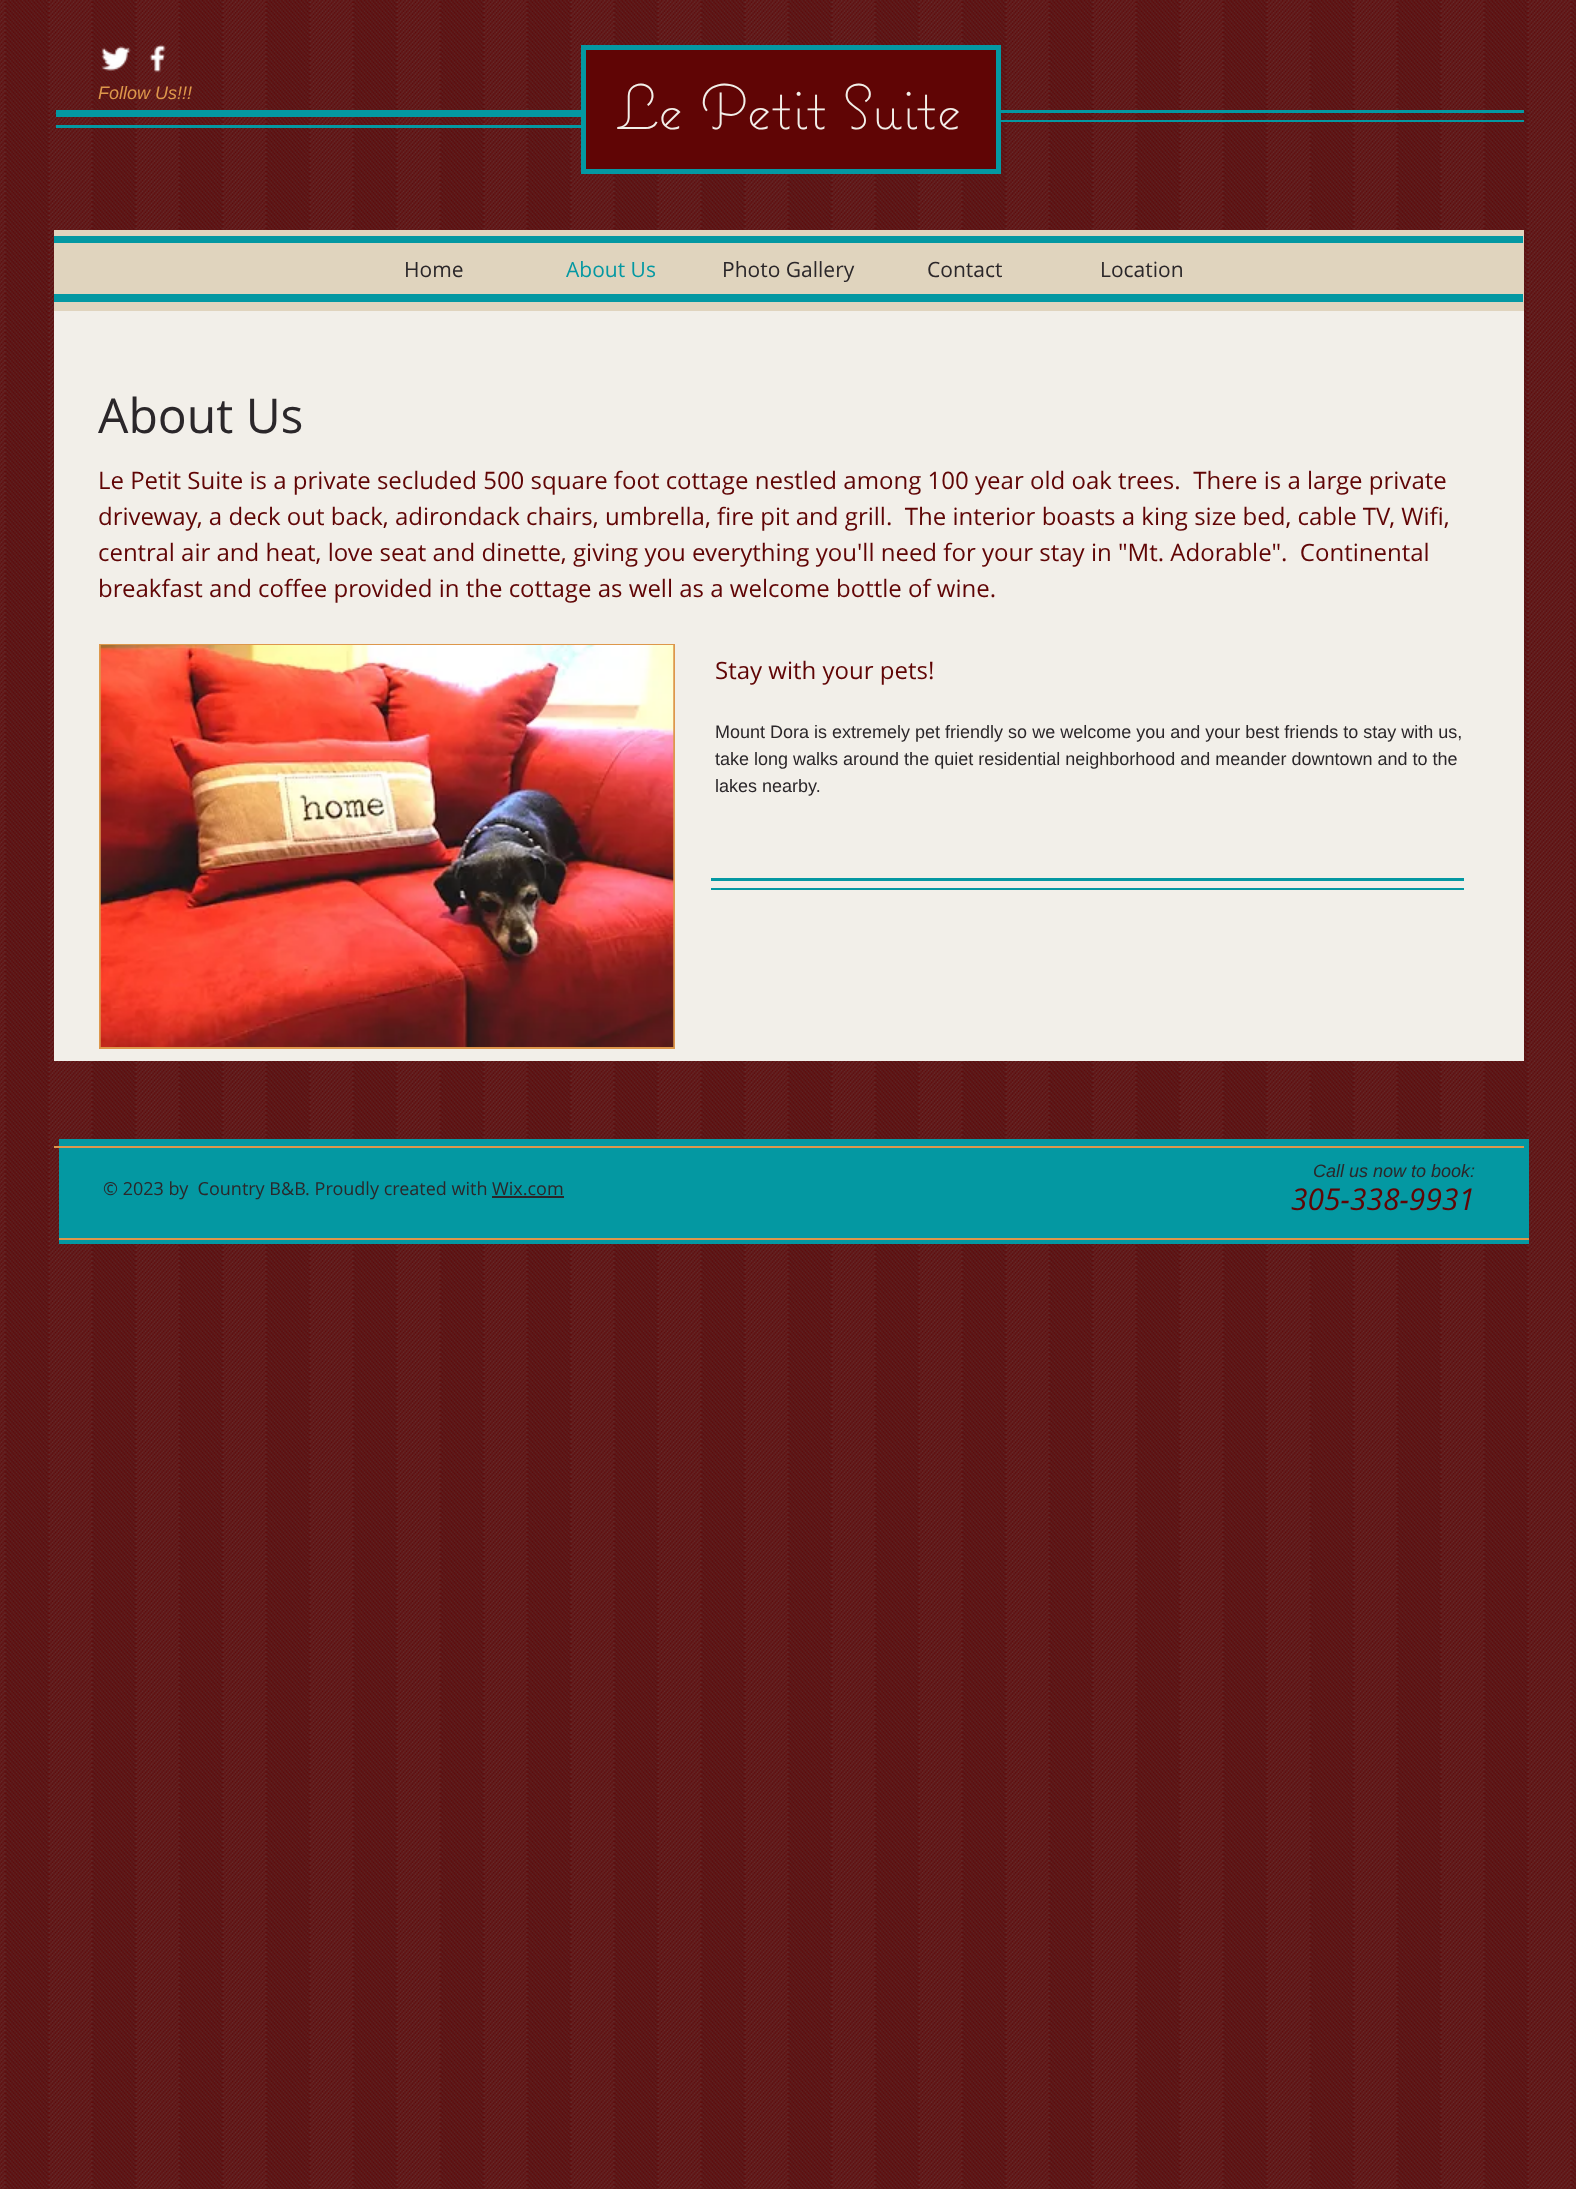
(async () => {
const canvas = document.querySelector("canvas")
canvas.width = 1576
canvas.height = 2189
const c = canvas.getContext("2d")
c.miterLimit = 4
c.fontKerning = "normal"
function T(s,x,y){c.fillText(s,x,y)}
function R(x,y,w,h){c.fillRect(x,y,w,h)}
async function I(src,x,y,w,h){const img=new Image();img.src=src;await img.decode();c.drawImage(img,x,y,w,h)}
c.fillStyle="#600505"
R(0,0,1576,2189)
await I("1.png",0,0,1576,2189)
await I("2.png",101,46,30,25)
await I("3.png",149,44,17,29)
c.font="italic 18px Liberation Sans"
c.fillStyle="#dd974b"
T("Follow Us!!!",98,99)
c.fillStyle="#600505"
c.beginPath()
c.rect(583.5,47.5,415,124)
c.fill()
c.strokeStyle="#0498a2"
c.lineWidth=5
c.stroke()
c.font="300 63px 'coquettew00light'"
c.fillStyle="#f2efe9"
T("Le Petit Suite",616,129)
c.fillStyle="#0498a2"
R(56,110,525,7)
R(56,125,525,3)
R(999,110,525,3)
R(999,120,525,2)
c.fillStyle="#e0d4be"
R(54,230,1470,81)
c.fillStyle="#0498a2"
R(54,236,1469,7)
R(54,294,1469,8)
c.font="21px Open Sans"
c.fillStyle="#2b272a"
T("Home",404,277)
c.fillStyle="#0498a2"
T("About Us",566,277)
c.fillStyle="#2b272a"
T("Photo Gallery",722,277)
T("Contact",927,277)
T("Location",1100,277)
c.fillStyle="#f2efe9"
R(54,311,1470,750)
c.font="48px Open Sans"
c.fillStyle="#2b272a"
T("About Us",98,433)
c.font="24px Open Sans"
c.fillStyle="#600505"
T("Le Petit Suite is a private secluded 500 square foot cottage nestled among 100 year old oak trees.  There is a large private",98,489)
T("driveway, a deck out back, adirondack chairs, umbrella, fire pit and grill.  The interior boasts a king size bed, cable TV, Wifi,",98,525)
T("central air and heat, love seat and dinette, giving you everything you'll need for your stay in \"Mt. Adorable\".  Continental",98,561)
T("breakfast and coffee provided in the cottage as well as a welcome bottle of wine.",98,597)
c.fillStyle="#dd974b"
R(99,644,576,405)
await I("4.png",100,645,574,402)
c.fillStyle="#600505"
T("Stay with your pets!",715,679)
c.font="18px Liberation Sans"
c.fillStyle="#2b272a"
T("Mount Dora is extremely pet friendly so we welcome you and your best friends to stay with us,",715,738)
T("take long walks around the quiet residential neighborhood and meander downtown and to the",715,765)
T("lakes nearby.",715,792)
c.fillStyle="#0498a2"
R(711,878,753,3)
R(711,888,753,2)
R(59,1139,1470,105)
c.fillStyle="#dd974b"
R(54,1146,1470,2)
c.font="18px Open Sans"
c.fillStyle="#2b272a"
T("© 2023 by  Country B&B. Proudly created with Wix.com",103,1195)
R(492,1196,72,2)
c.font="italic 18px Liberation Sans"
T("Call us now to book:",1313,1177)
c.font="italic 30px Open Sans"
c.fillStyle="#600505"
T("305-338-9931",1291,1210)
c.fillStyle="#dd974b"
R(59,1238,1470,2)
})()
